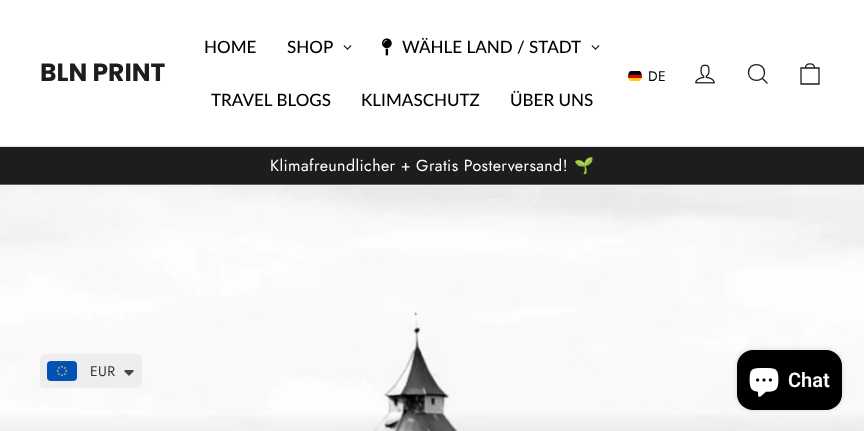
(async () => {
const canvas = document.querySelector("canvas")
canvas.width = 864
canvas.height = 431
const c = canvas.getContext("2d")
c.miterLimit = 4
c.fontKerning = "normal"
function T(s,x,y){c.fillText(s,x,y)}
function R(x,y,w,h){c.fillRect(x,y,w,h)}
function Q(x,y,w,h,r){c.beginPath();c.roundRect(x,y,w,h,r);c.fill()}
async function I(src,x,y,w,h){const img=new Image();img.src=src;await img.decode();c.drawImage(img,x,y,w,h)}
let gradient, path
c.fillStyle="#fff"
R(0,0,864,431)
c.fillStyle="#e8e8e1"
R(0,146,864,1)
c.font="bold 25px Poppins"
c.fillStyle="#1c1d1d"
T("BLN PRINT",40,81)
c.font="500 17px Lato"
c.fillStyle="#000"
T("HOME",204,53)
T("SHOP",287,53)
await I("1.png",343,45,9,5)
await I("2.png",382,38,10,18)
T("WÄHLE LAND / STADT",402,53)
await I("1.png",591,45,9,5)
T("TRAVEL BLOGS",211,106)
T("KLIMASCHUTZ",361,106)
T("ÜBER UNS",510,106)
c.save()
c.beginPath()
c.roundRect(628,69,14,14,7)
c.clip()
c.fillStyle="#ffce00"
R(628,78,14,3)
c.fillStyle="#000"
R(628,71,14,4)
c.restore()
c.fillStyle="#d00"
R(628,75,14,3)
c.letterSpacing="0.4px"
c.font="14px Jost"
c.fillStyle="#000"
T("DE",648,81)
await I("3.png",695,64,20,20)
path = new Path2D("M764.5 72.5c0 10.5-16 10.5-16 0c0-10.5 16-10.5 16 0zm3 11l-5-5")
c.strokeStyle="#1c1d1d"
c.lineWidth=1.3
c.stroke(path)
path = new Path2D("M801 68h18v16h-18zm4.5 0c0-5.5 9-5.5 9 0")
c.stroke(path)
c.fillStyle="#1c1d1d"
R(0,147,864,37)
c.font="16px Jost"
c.fillStyle="#fff"
T("Klimafreundlicher + Gratis Posterversand!",270,171)
c.font="16px Noto Color Emoji"
T("🌱",574,171)
await I("4.png",0,184,864,247)
gradient = c.createLinearGradient(432,184,432,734)
gradient.addColorStop(0,"#00000000")
gradient.addColorStop(.4,"#00000000")
gradient.addColorStop(1,"#0000009e")
c.fillStyle = gradient
R(0,415,864,16)
c.fillStyle="#eee"
Q(40,354,102,34,5)
await I("5.png",47,361,30,20)
c.font="14px Jost"
c.fillStyle="#333"
T("EUR",90,376)
c.fillStyle="#474942"
path = new Path2D("M126 370c-1 0-1.5 .5-2 1l5 5l5-5l-1-1z")
c.fill(path)
c.fillStyle="#00000026"
c.filter="blur(2.5px)"
c.beginPath()
c.roundRect(737,350,105,60,16)
c.fill()
c.filter="none"
c.fillStyle="#000"
Q(737,350,105,60,16)
await I("6.png",749,368,30,29)
c.letterSpacing="0px"
c.font="600 20px Roboto"
c.fillStyle="#fff"
T("Chat",788,387)
})()
